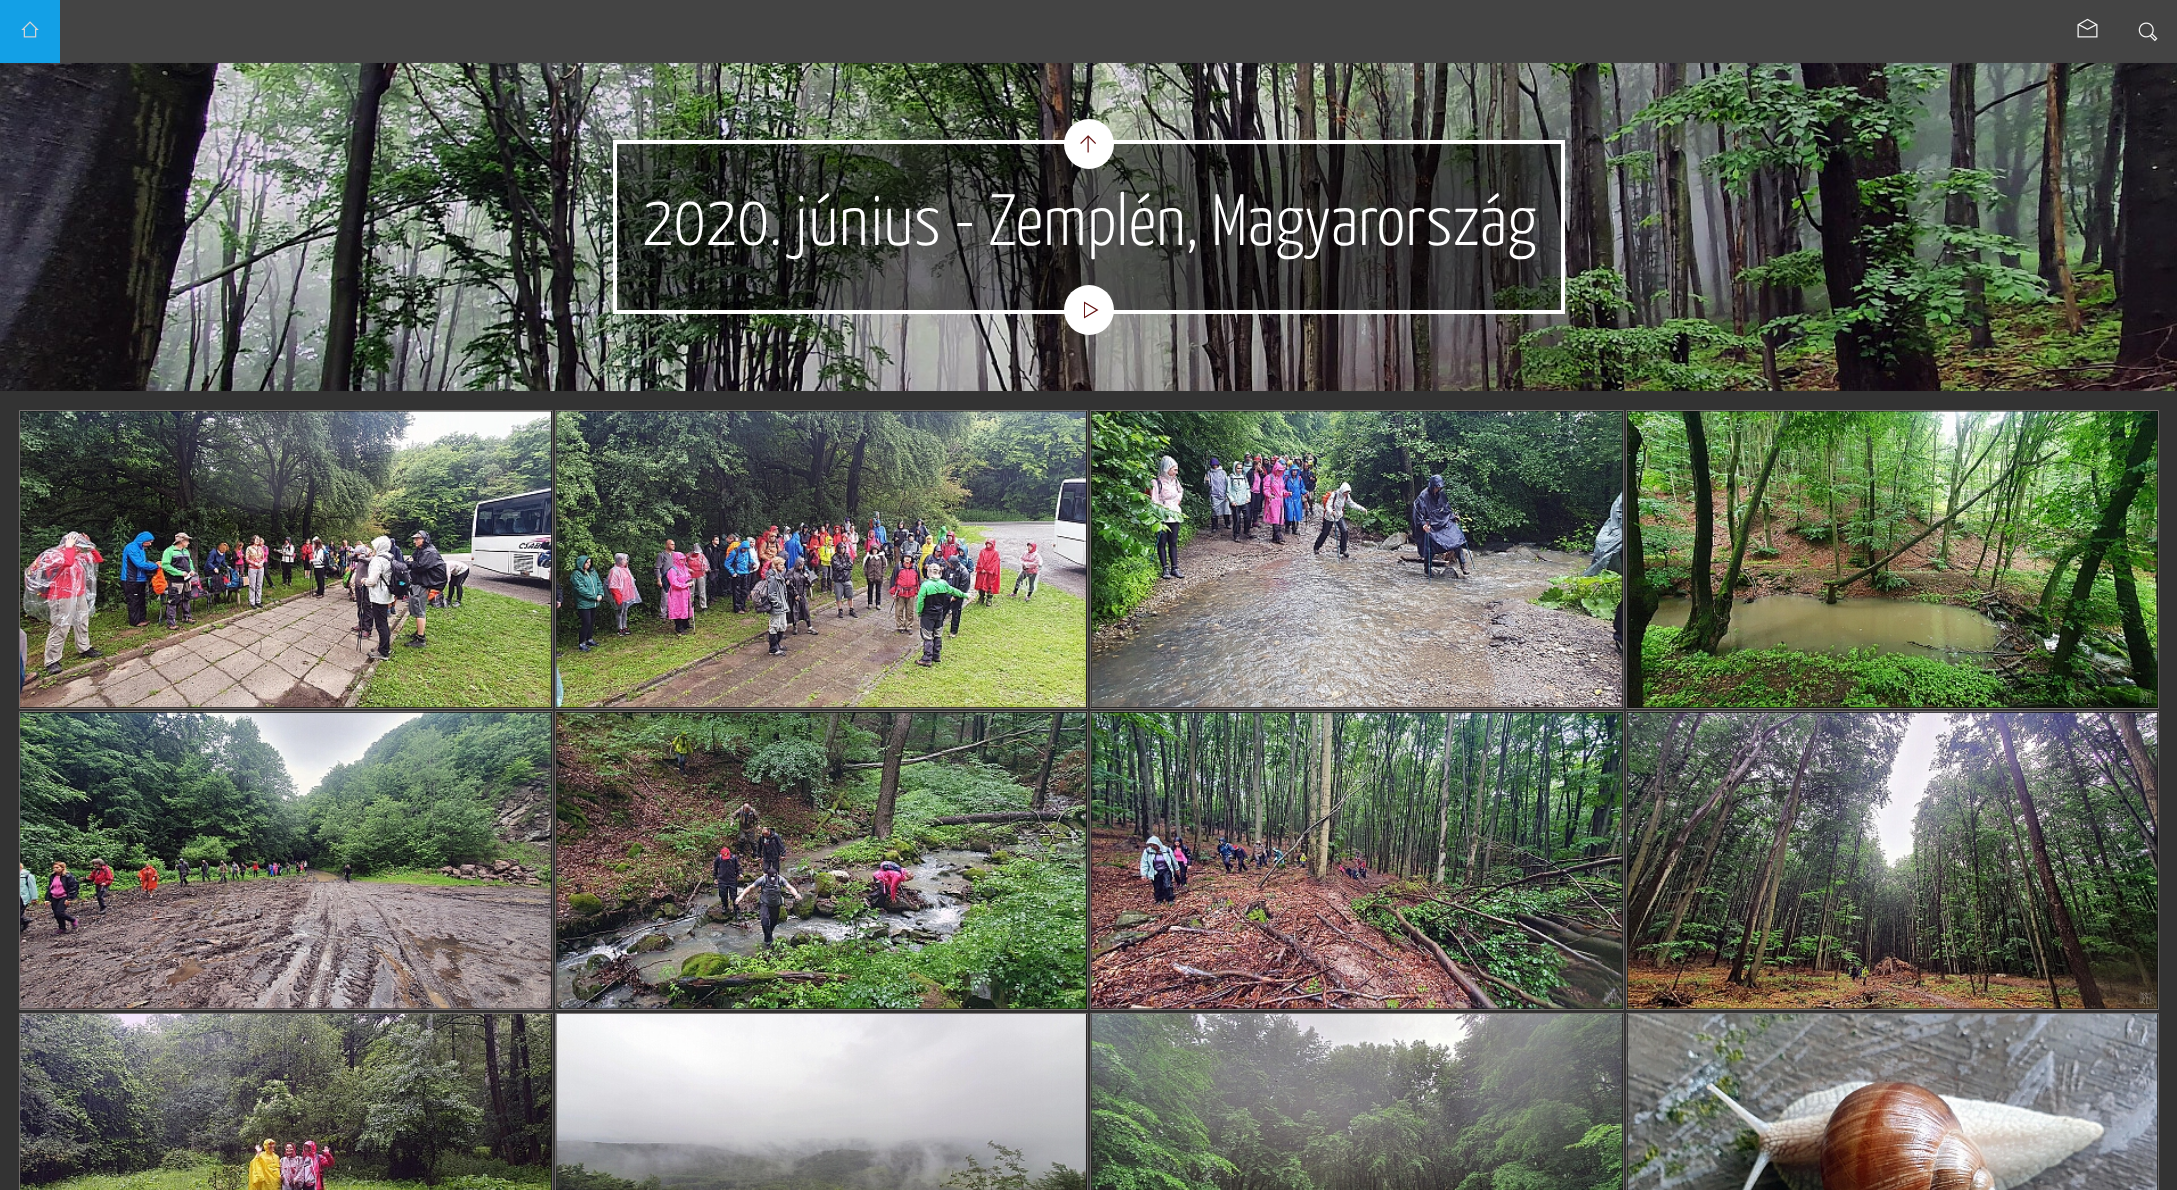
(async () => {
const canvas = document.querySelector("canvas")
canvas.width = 2177
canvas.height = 1190
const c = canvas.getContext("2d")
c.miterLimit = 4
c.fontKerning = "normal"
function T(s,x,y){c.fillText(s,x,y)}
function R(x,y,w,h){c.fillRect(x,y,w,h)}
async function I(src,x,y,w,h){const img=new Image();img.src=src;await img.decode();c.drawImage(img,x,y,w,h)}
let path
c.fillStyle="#fff"
R(0,0,2177,1190)
c.fillStyle="#444"
R(60,0,2117,63)
c.fillStyle="#13a0e6"
R(0,0,60,63)
await I("1.png",21,21,18,17)
await I("2.png",2077,18,21,20)
await I("3.png",2138,22,20,20)
await I("4.png",0,63,2177,328)
c.fillStyle="#00000080"
c.beginPath()
c.rect(615,142,948,170)
c.fill()
c.strokeStyle="#fff"
c.lineWidth=4
c.stroke()
c.fillStyle="#fff"
c.beginPath()
c.arc(1089,144,25,0,7)
c.fill()
await I("5.png",1080,135,16,18)
c.font="200 72.5px Yanone Kaffeesatz"
T("2020. június - Zemplén, Magyarország",642,245)
c.beginPath()
c.arc(1089,310,25,0,7)
c.fill()
c.fillStyle="#661414"
path = new Path2D("M1085 303.5l11 6.5l-11 6.5zm-1-2v17l14.5-8.5z")
c.fill(path)
c.fillStyle="#333"
R(0,391,2177,799)
c.fillStyle="#111"
c.beginPath()
c.rect(19.5,410.5,533,298)
c.fill()
c.strokeStyle="#787272"
c.lineWidth=1
c.stroke()
await I("6.png",20,411,532,297)
c.beginPath()
c.rect(555.5,410.5,532,298)
c.fill()
c.stroke()
await I("7.png",556,411,531,297)
c.beginPath()
c.rect(1090.5,410.5,533,298)
c.fill()
c.stroke()
await I("8.png",1091,411,532,297)
c.beginPath()
c.rect(1626.5,410.5,532,298)
c.fill()
c.stroke()
await I("9.png",1627,411,531,297)
c.beginPath()
c.rect(19.5,711.5,533,298)
c.fill()
c.stroke()
await I("10.png",20,712,532,297)
c.beginPath()
c.rect(555.5,711.5,532,298)
c.fill()
c.stroke()
await I("11.png",556,712,531,297)
c.beginPath()
c.rect(1090.5,711.5,533,298)
c.fill()
c.stroke()
await I("12.png",1091,712,532,297)
c.beginPath()
c.rect(1626.5,711.5,532,298)
c.fill()
c.stroke()
await I("13.png",1627,712,531,297)
R(551,1014,1,176)
c.strokeRect(19.5,1013.5,533,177)
await I("14.png",20,1013,532,177)
c.beginPath()
c.rect(555.5,1013.5,532,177)
c.fill()
c.stroke()
await I("15.png",556,1013,531,177)
c.beginPath()
c.rect(1090.5,1013.5,533,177)
c.fill()
c.stroke()
await I("16.png",1091,1013,532,177)
c.beginPath()
c.rect(1626.5,1013.5,532,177)
c.fill()
c.stroke()
await I("17.png",1627,1013,531,177)
})()
